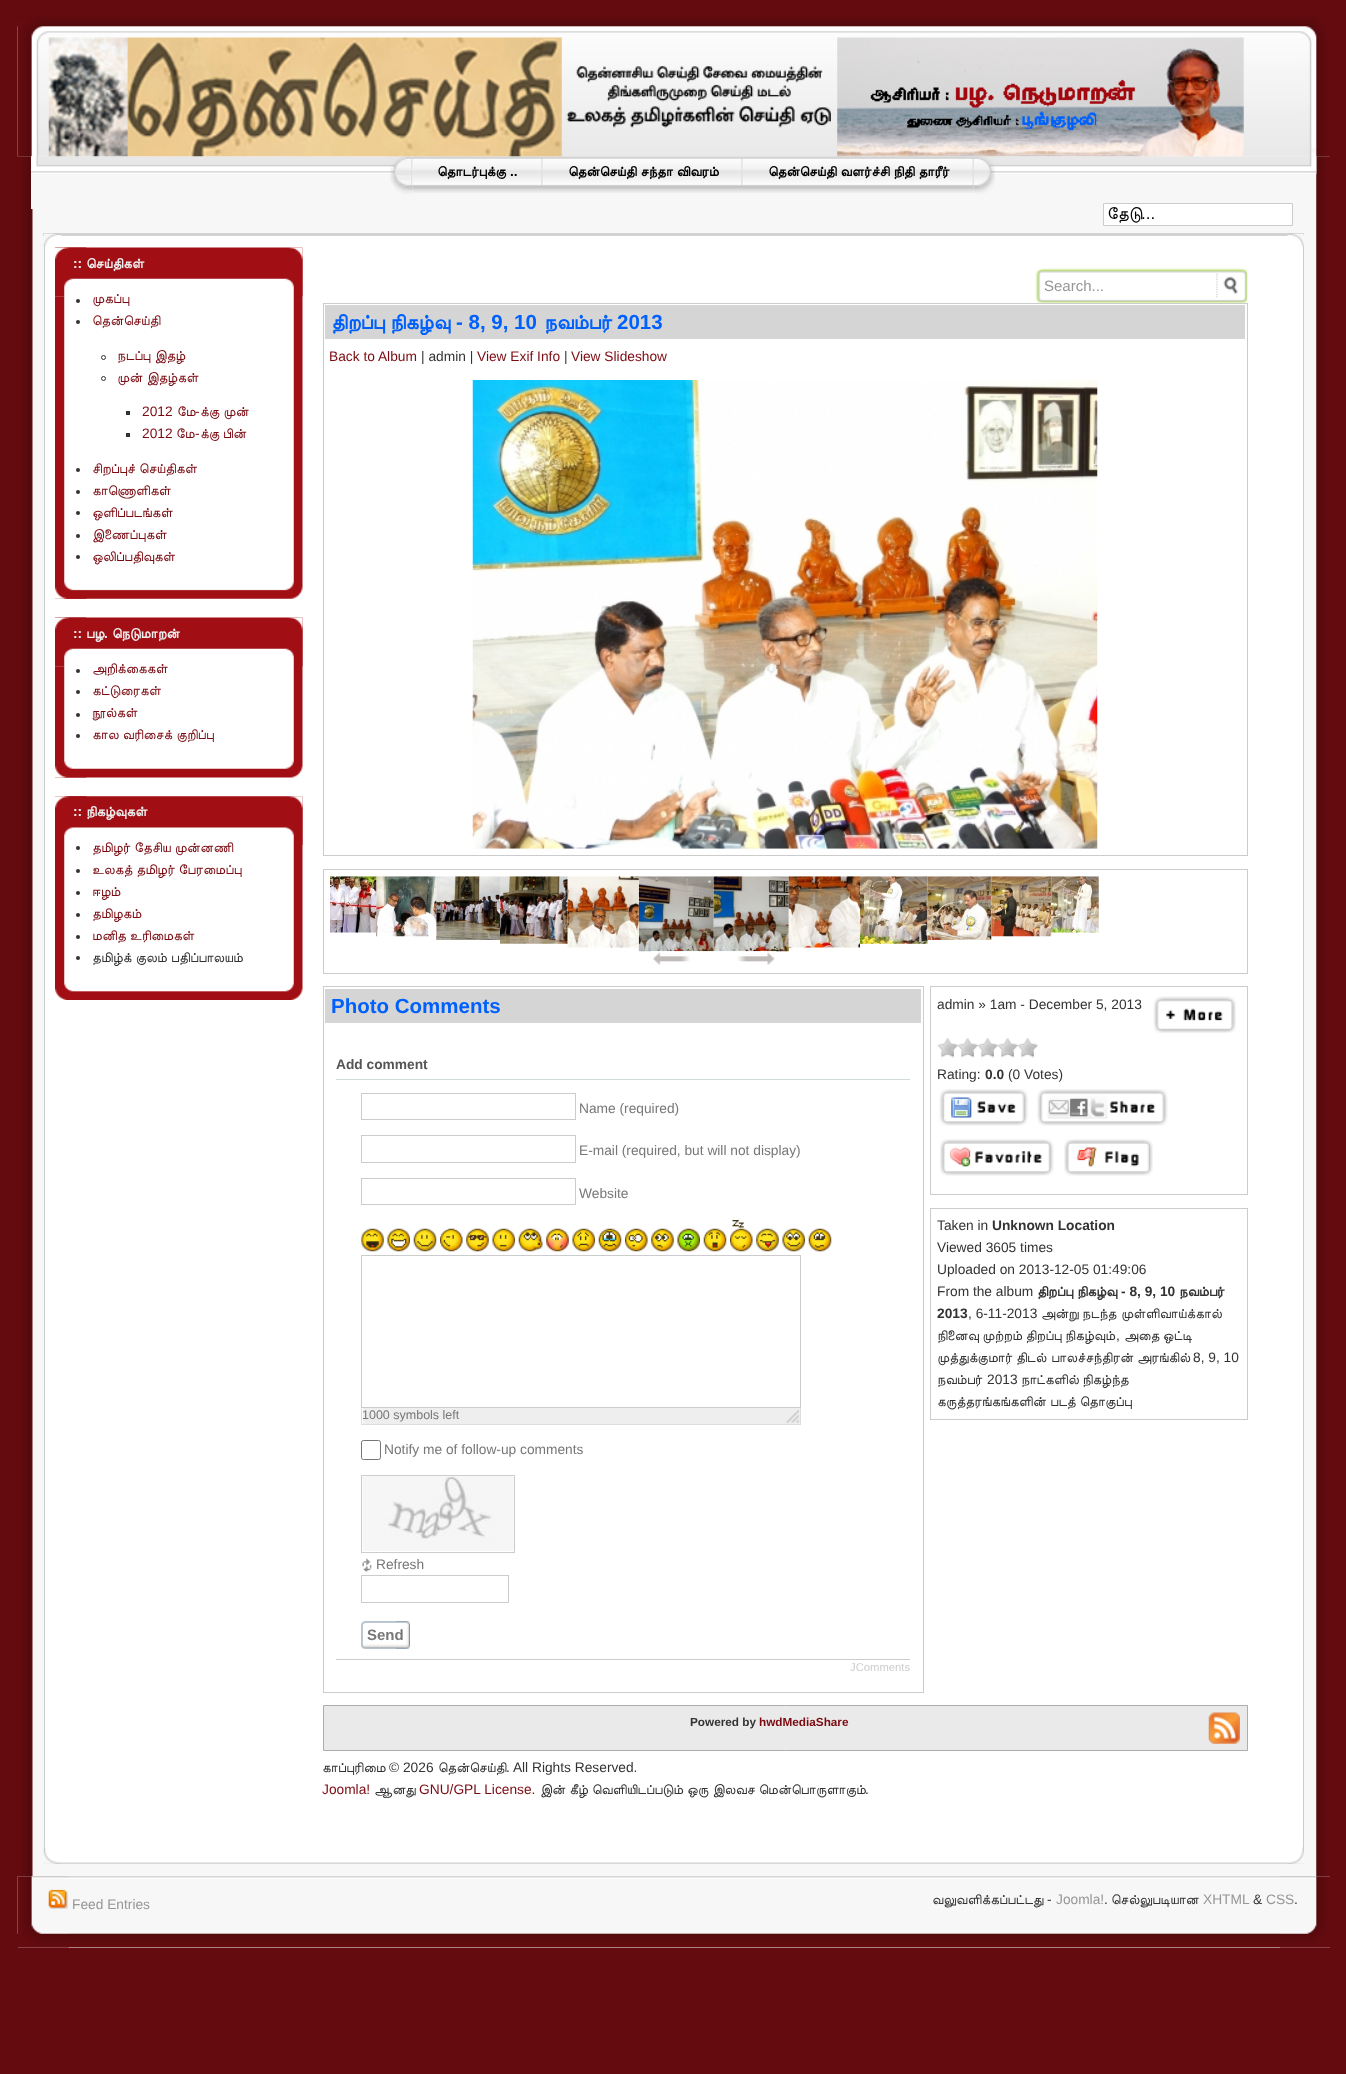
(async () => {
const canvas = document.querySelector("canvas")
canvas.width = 1346
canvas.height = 2074
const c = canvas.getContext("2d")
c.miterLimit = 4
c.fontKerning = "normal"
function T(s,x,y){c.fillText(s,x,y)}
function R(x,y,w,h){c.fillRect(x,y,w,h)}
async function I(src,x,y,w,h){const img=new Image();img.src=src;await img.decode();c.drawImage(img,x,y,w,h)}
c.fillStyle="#640b0f"
R(0,0,1346,2074)
c.fillStyle="#f7f7f7"
R(32,156,1285,1720)
await I("1.png",17,12,16,1936)
await I("2.png",1316,12,14,1864)
await I("3.png",17,12,1313,145)
R(31,156,1285,53)
await I("7.png",31,156,1286,18)
await I("8.png",31,156,7,17)
await I("4.png",17,18,31,139)
await I("9.png",1309,156,8,18)
await I("5.png",1300,18,30,139)
await I("10.png",388,156,25,38)
await I("11.png",412,156,562,37)
await I("14.png",974,156,21,38)
await I("6.png",48,37,1196,120)
await I("12.png",541,158,2,27)
c.font="bold 13.75px FreeSans"
c.fillStyle="#000"
T("தொடர்புக்கு",437,176)
c.font="bold 13.75px Liberation Sans"
T("..",510,176)
await I("12.png",741,158,2,27)
c.wordSpacing="0.5px"
c.font="bold 13.75px FreeSans"
T("தென்செய்தி சந்தா விவரம்",568,176)
await I("13.png",972,157,2,29)
T("தென்செய்தி வளர்ச்சி நிதி தாரீர்",768,176)
c.fillStyle="#fff"
c.beginPath()
c.rect(1103.5,203.5,189,22)
c.fill()
c.strokeStyle="#ccc"
c.stroke()
c.wordSpacing="0px"
c.font="17px FreeSans"
c.fillStyle="#000"
T("தேடு",1107,219)
c.font="17px Liberation Sans"
T("...",1141,219)
c.fillStyle="#fff"
R(44,236,1260,1628)
c.fillStyle="#d2d2d2"
R(43,233,1261,3)
await I("15.png",43,233,19,14)
c.fillStyle="#ccc"
R(1303,246,1,1608)
await I("16.png",1287,233,17,14)
R(44,246,1,1608)
await I("17.png",55,247,248,352)
await I("18.png",55,247,32,352)
await I("19.png",55,247,248,50)
await I("20.png",55,247,32,50)
c.font="bold 13.75px Liberation Sans"
c.fillStyle="#eee"
T("::",73,268)
c.font="bold 13.75px FreeSans"
T("செய்திகள்",86,268)
c.fillStyle="#333"
c.beginPath()
c.arc(78,301,2,0,7)
c.fill()
c.font="13.75px FreeSans"
c.fillStyle="#7b0b12"
T("முகப்பு",92,303)
c.fillStyle="#333"
c.beginPath()
c.arc(78,322,2,0,7)
c.fill()
c.fillStyle="#7b0b12"
T("தென்செய்தி",92,325)
c.beginPath()
c.arc(103.5,357.5,2,0,7)
c.strokeStyle="#333"
c.stroke()
c.wordSpacing="0.5px"
T("நடப்பு இதழ்",117,360)
c.beginPath()
c.arc(103.5,378.5,2,0,7)
c.stroke()
T("முன் இதழ்கள்",117,382)
c.fillStyle="#333"
R(126,411,4,4)
c.wordSpacing="0px"
c.font="13.75px Liberation Sans"
c.fillStyle="#7b0b12"
T("2012",142,416)
c.font="13.75px FreeSans"
T("மே",177,416)
c.font="13.75px Liberation Sans"
T("-",195,416)
c.wordSpacing="0.5px"
c.font="13.75px FreeSans"
T("க்கு முன்",200,416)
c.fillStyle="#333"
R(126,433,4,4)
c.wordSpacing="0px"
c.font="13.75px Liberation Sans"
c.fillStyle="#7b0b12"
T("2012",142,438)
c.font="13.75px FreeSans"
T("மே",176,438)
c.font="13.75px Liberation Sans"
T("-",195,438)
c.font="13.75px FreeSans"
T("க்கு பின்",200,438)
c.fillStyle="#333"
c.beginPath()
c.arc(78,470,2,0,7)
c.fill()
c.wordSpacing="0.5px"
c.fillStyle="#7b0b12"
T("சிறப்புச் செய்திகள்",92,473)
c.fillStyle="#333"
c.beginPath()
c.arc(78,492,2,0,7)
c.fill()
c.wordSpacing="0px"
c.fillStyle="#7b0b12"
T("காணொளிகள்",92,495)
c.fillStyle="#333"
c.beginPath()
c.arc(78,513,2,0,7)
c.fill()
c.fillStyle="#7b0b12"
T("ஒளிப்படங்கள்",92,517)
c.fillStyle="#333"
c.beginPath()
c.arc(78,536,2,0,7)
c.fill()
c.fillStyle="#7b0b12"
T("இணைப்புகள்",92,539)
c.fillStyle="#333"
c.beginPath()
c.arc(78,557,2,0,7)
c.fill()
c.fillStyle="#7b0b12"
T("ஒலிப்பதிவுகள்",92,561)
await I("21.png",55,617,248,161)
await I("22.png",55,617,32,161)
await I("19.png",55,617,248,50)
await I("20.png",55,617,32,50)
c.font="bold 13.75px Liberation Sans"
c.fillStyle="#eee"
T("::",73,638)
c.font="bold 13.75px FreeSans"
T("பழ",86,638)
c.font="bold 13.75px Liberation Sans"
T(".",104,638)
c.font="bold 13.75px FreeSans"
T("நெடுமாறன்",112,638)
c.fillStyle="#333"
c.beginPath()
c.arc(78,671,2,0,7)
c.fill()
c.font="13.75px FreeSans"
c.fillStyle="#7b0b12"
T("அறிக்கைகள்",92,673)
c.fillStyle="#333"
c.beginPath()
c.arc(78,692,2,0,7)
c.fill()
c.fillStyle="#7b0b12"
T("கட்டுரைகள்",92,695)
c.fillStyle="#333"
c.beginPath()
c.arc(78,715,2,0,7)
c.fill()
c.fillStyle="#7b0b12"
T("நூல்கள்",92,717)
c.fillStyle="#333"
c.beginPath()
c.arc(78,736,2,0,7)
c.fill()
c.wordSpacing="0.5px"
c.fillStyle="#7b0b12"
T("கால வரிசைக் குறிப்பு",92,739)
await I("23.png",55,796,248,204)
await I("24.png",55,796,19,204)
await I("25.png",55,796,248,49)
await I("26.png",55,796,32,49)
c.wordSpacing="0px"
c.font="bold 13.75px Liberation Sans"
c.fillStyle="#eee"
T("::",73,816)
c.font="bold 13.75px FreeSans"
T("நிகழ்வுகள்",86,816)
c.fillStyle="#333"
c.beginPath()
c.arc(78,848,2,0,7)
c.fill()
c.wordSpacing="0.5px"
c.font="13.75px FreeSans"
c.fillStyle="#7b0b12"
T("தமிழர் தேசிய முன்னணி",92,852)
c.fillStyle="#333"
c.beginPath()
c.arc(78,871,2,0,7)
c.fill()
c.fillStyle="#7b0b12"
T("உலகத் தமிழர் பேரமைப்பு",92,874)
c.fillStyle="#333"
c.beginPath()
c.arc(78,893,2,0,7)
c.fill()
c.wordSpacing="0px"
c.fillStyle="#7b0b12"
T("ஈழம்",92,896)
c.fillStyle="#333"
c.beginPath()
c.arc(78,915,2,0,7)
c.fill()
c.fillStyle="#7b0b12"
T("தமிழகம்",92,918)
c.fillStyle="#333"
c.beginPath()
c.arc(78,937,2,0,7)
c.fill()
c.wordSpacing="0.5px"
c.fillStyle="#7b0b12"
T("மனித உரிமைகள்",92,940)
c.fillStyle="#333"
c.beginPath()
c.arc(78,958,2,0,7)
c.fill()
T("தமிழ்க் குலம் பதிப்பாலயம்",92,962)
await I("27.png",1035,268,213,35)
c.wordSpacing="0px"
c.font="15px Liberation Sans"
c.fillStyle="#969696"
T("Search...",1044,291)
c.strokeStyle="#ccc"
c.strokeRect(323.5,303.5,924,552)
c.fillStyle="#d5d5d5"
R(325,305,920,34)
c.font="bold 20.5px FreeSans"
c.fillStyle="#0060fc"
T("திறப்பு",331,329)
T("நிகழ்வு",390,329)
c.font="bold 20.5px Liberation Sans"
T("- 8, 9, 10",456,329)
c.font="bold 20.5px FreeSans"
T("நவம்பர்",544,329)
c.font="bold 20.5px Liberation Sans"
T("2013",617,329)
c.font="13.75px Liberation Sans"
c.fillStyle="#7b0b12"
T("Back to Album",329,361)
c.fillStyle="#333"
T("| admin |",421,361)
c.fillStyle="#7b0b12"
T("View Exif Info",477,361)
c.fillStyle="#333"
T("|",564,361)
c.fillStyle="#7b0b12"
T("View Slideshow",571,361)
await I("28.png",472,380,626,469)
c.strokeRect(323.5,869.5,924,104)
await I("31.png",436,876,64,64)
await I("30.png",376,876,61,61)
await I("29.png",330,876,47,57)
await I("34.png",638,876,76,76)
await I("33.png",567,876,72,72)
await I("32.png",500,876,68,68)
await I("35.png",651,951,63,14)
await I("36.png",713,876,76,76)
await I("37.png",788,876,72,72)
await I("38.png",860,876,68,68)
await I("39.png",927,876,65,64)
await I("40.png",991,876,61,61)
await I("41.png",1051,876,48,57)
await I("42.png",714,951,63,14)
c.strokeRect(323.5,986.5,600,706)
c.fillStyle="#d5d5d5"
R(325,989,596,34)
c.font="bold 20.5px Liberation Sans"
c.fillStyle="#0060fc"
T("Photo Comments",331,1013)
c.fillStyle="#d2dadb"
R(336,1079,574,1)
c.font="bold 13.75px Liberation Sans"
c.fillStyle="#555"
T("Add comment",336,1069)
c.strokeRect(361.5,1093.5,214,26)
c.font="13.75px Liberation Sans"
c.fillStyle="#777"
T("Name (required)",579,1113)
c.strokeRect(361.5,1135.5,214,27)
T("E-mail (required, but will not display)",579,1155)
c.strokeRect(361.5,1178.5,214,26)
T("Website",579,1198)
await I("43.png",361,1228,23,24)
await I("44.png",387,1228,23,24)
await I("45.png",413,1228,24,24)
await I("46.png",440,1228,23,24)
await I("47.png",466,1228,23,24)
await I("48.png",492,1228,23,24)
await I("49.png",518,1228,25,24)
await I("50.png",546,1228,23,24)
await I("51.png",572,1228,23,24)
await I("52.png",598,1228,24,24)
await I("53.png",625,1228,23,24)
await I("54.png",651,1228,23,24)
await I("55.png",677,1228,23,24)
await I("56.png",703,1228,24,24)
await I("57.png",730,1220,23,32)
await I("58.png",756,1228,23,24)
await I("59.png",782,1228,23,24)
await I("60.png",808,1228,24,24)
c.strokeRect(361.5,1255.5,439,152)
c.fillStyle="#eee"
R(363,1408,437,16)
await I("61.png",786,1410,13,14)
c.fillStyle="#ddd"
R(800,1408,1,17)
R(361,1424,440,1)
R(361,1408,1,17)
c.font="12.5px Liberation Sans"
c.fillStyle="#777"
T("1000 symbols left",362,1419)
c.beginPath()
c.roundRect(361.5,1440.5,19,19,2)
c.strokeStyle="#767676"
c.stroke()
c.font="13.75px Liberation Sans"
T("Notify me of follow-up comments",384,1454)
c.strokeStyle="#ccc"
c.strokeRect(361.5,1475.5,153,77)
await I("62.png",362,1476,152,75)
await I("63.png",362,1558,10,14)
T("Refresh",376,1569)
c.strokeRect(361.5,1575.5,147,27)
await I("64.png",361,1621,48,28)
await I("65.png",396,1621,14,28)
c.font="bold 15px Liberation Sans"
T("Send",367,1640)
c.fillStyle="#ccc"
R(336,1659,574,1)
c.font="11.25px Liberation Sans"
T("JComments",850,1671)
c.strokeRect(930.5,986.5,317,208)
c.font="13.75px Liberation Sans"
c.fillStyle="#333"
T("admin » 1am - December 5, 2013",937,1009)
await I("66.png",1153,996,83,37)
await I("67.png",937,1037,101,21)
T("Rating:",937,1079)
c.font="bold 13.75px Liberation Sans"
T("0.0",985,1079)
c.font="13.75px Liberation Sans"
T("(0 Votes)",1008,1079)
await I("68.png",939,1089,89,37)
await I("69.png",1037,1089,131,37)
await I("70.png",940,1139,114,37)
await I("71.png",1064,1139,89,37)
c.strokeRect(930.5,1208.5,317,211)
T("Taken in",937,1230)
c.font="bold 13.75px Liberation Sans"
T("Unknown Location",992,1230)
c.font="13.75px Liberation Sans"
T("Viewed 3605 times",937,1252)
T("Uploaded on 2013-12-05 01:49:06",937,1274)
T("From the album",937,1296)
c.font="bold 13.75px FreeSans"
T("திறப்பு",1037,1296)
T("நிகழ்வு",1077,1296)
c.font="bold 13.75px Liberation Sans"
T("- 8, 9, 10",1121,1296)
c.font="bold 13.75px FreeSans"
T("நவம்பர்",1179,1296)
c.font="bold 13.75px Liberation Sans"
T("2013",937,1318)
c.font="13.75px Liberation Sans"
T(", 6-11-2013",968,1318)
c.font="13.75px FreeSans"
T("அன்று",1041,1318)
T("நடந்த",1082,1318)
T("முள்ளிவாய்க்கால்",1121,1318)
T("நினைவு முற்றம் திறப்பு நிகழ்வும்",937,1340)
c.font="13.75px Liberation Sans"
T(",",1116,1340)
c.font="13.75px FreeSans"
T("அதை ஒட்டி",1124,1340)
T("முத்துக்குமார்",937,1362)
T("திடல்",1016,1362)
T("பாலச்சந்திரன்",1051,1362)
T("அரங்கில்",1137,1362)
c.font="13.75px Liberation Sans"
T("8, 9, 10",1193,1362)
c.font="13.75px FreeSans"
T("நவம்பர்",937,1384)
c.font="13.75px Liberation Sans"
T("2013",987,1384)
c.font="13.75px FreeSans"
T("நாட்களில் நிகழ்ந்த",1021,1384)
c.wordSpacing="0.5px"
T("கருத்தரங்கங்களின் படத் தொகுப்பு",937,1406)
c.fillStyle="#eaeaea"
c.beginPath()
c.rect(323.5,1705.5,924,45)
c.fill()
c.strokeStyle="#adadad"
c.stroke()
c.wordSpacing="0px"
c.font="bold 11.75px Liberation Sans"
c.fillStyle="#333"
T("Powered by",690,1726)
c.fillStyle="#7b0b12"
T("hwdMediaShare",759,1726)
await I("72.png",1208,1712,32,32)
c.font="13.75px FreeSans"
c.fillStyle="#333"
T("காப்புரிமை",322,1772)
c.font="13.75px Liberation Sans"
T("© 2026",389,1772)
c.font="13.75px FreeSans"
T("தென்செய்தி",438,1772)
c.font="13.75px Liberation Sans"
T(". All Rights Reserved.",506,1772)
c.fillStyle="#7b0b12"
T("Joomla!",322,1794)
c.font="13.75px FreeSans"
c.fillStyle="#333"
T("ஆனது",374,1794)
c.font="13.75px Liberation Sans"
c.fillStyle="#7b0b12"
T("GNU/GPL License.",419,1794)
c.wordSpacing="0.5px"
c.font="13.75px FreeSans"
c.fillStyle="#333"
T("இன் கீழ் வெளியிடப்படும் ஒரு இலவச மென்பொருளாகும்",540,1794)
c.wordSpacing="0px"
c.font="13.75px Liberation Sans"
T(".",865,1794)
await I("73.png",43,1851,1261,13)
await I("74.png",43,1847,18,17)
await I("75.png",1287,1847,17,17)
c.fillStyle="#f7f7f7"
R(18,1876,1312,72)
await I("76.png",17,1876,1313,72)
await I("77.png",17,1876,52,72)
await I("78.png",1280,1876,50,72)
await I("79.png",48,1889,20,20)
c.fillStyle="#969696"
T("Feed Entries",72,1909)
c.font="13.75px FreeSans"
c.fillStyle="#333"
T("வலுவளிக்கப்பட்டது",932,1904)
c.font="13.75px Liberation Sans"
T("-",1047,1904)
c.fillStyle="#969696"
T("Joomla!",1056,1904)
c.font="13.75px FreeSans"
c.fillStyle="#333"
T("செல்லுபடியான",1111,1904)
c.font="13.75px Liberation Sans"
c.fillStyle="#969696"
T("XHTML",1203,1904)
c.fillStyle="#333"
T("&",1253,1904)
c.fillStyle="#969696"
T("CSS",1266,1904)
c.fillStyle="#333"
T(".",1104,1904)
T(".",1294,1904)
})()
